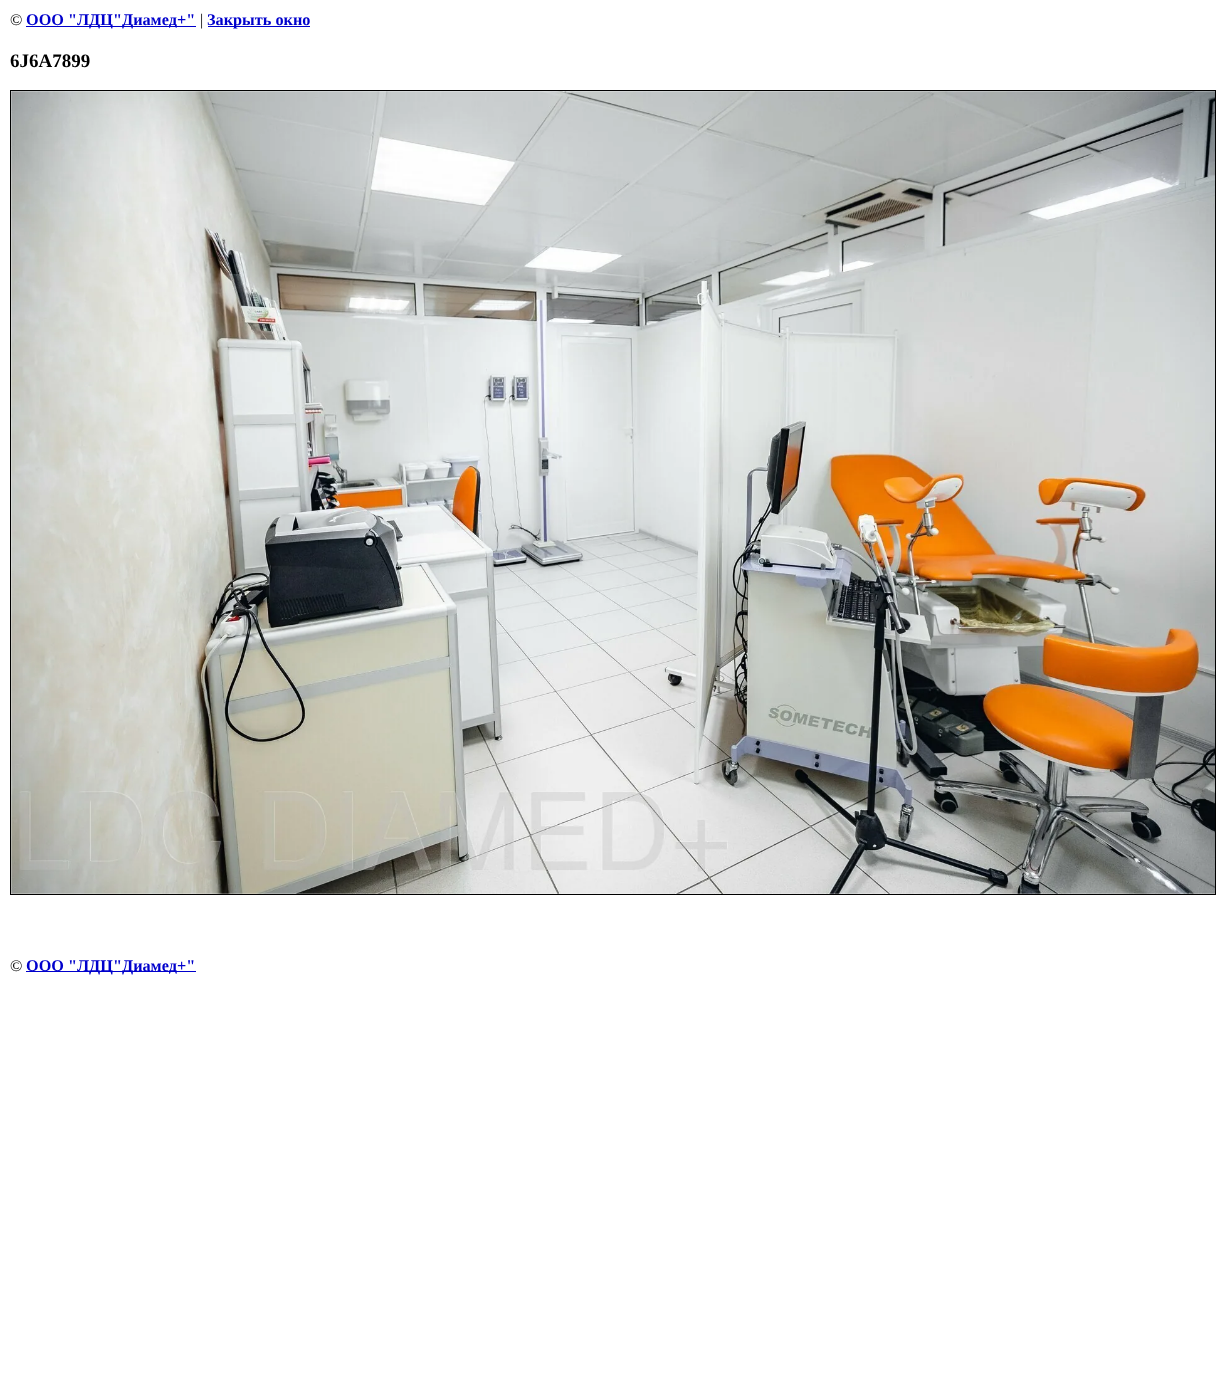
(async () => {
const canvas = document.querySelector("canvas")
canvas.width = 1223
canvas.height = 1392
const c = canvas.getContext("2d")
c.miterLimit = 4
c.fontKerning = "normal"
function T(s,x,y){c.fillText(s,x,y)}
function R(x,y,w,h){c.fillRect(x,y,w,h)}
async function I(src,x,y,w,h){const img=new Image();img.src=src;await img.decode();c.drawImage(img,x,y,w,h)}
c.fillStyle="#fff"
R(0,0,1223,1392)
c.font="16.25px Liberation Serif"
c.fillStyle="#000"
T("©",10,25)
c.fillStyle="#00c"
R(26,26,170,1)
c.font="bold 16.25px Liberation Serif"
T("ООО \"ЛДЦ\"Диамед+\"",26,25)
c.font="16.25px Liberation Serif"
c.fillStyle="#000"
T("|",200,25)
c.fillStyle="#00c"
R(208,26,102,1)
c.font="bold 16.25px Liberation Serif"
T("Закрыть окно",207,25)
c.font="bold 19px Liberation Serif"
c.fillStyle="#000"
T("6J6A7899",10,67)
c.strokeStyle="#000"
c.strokeRect(10.5,90.5,1205,804)
await I("1.png",11,91,1204,803)
c.font="16.25px Liberation Serif"
T("©",10,971)
c.fillStyle="#00c"
R(26,971,170,1)
c.font="bold 16.25px Liberation Serif"
T("ООО \"ЛДЦ\"Диамед+\"",26,971)
})()
